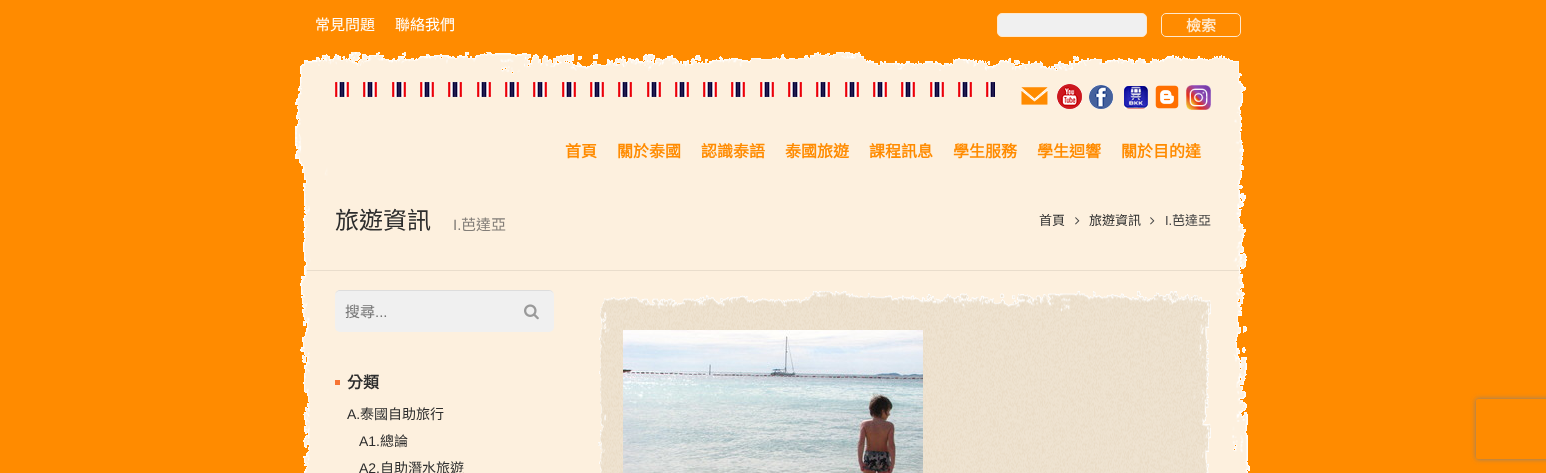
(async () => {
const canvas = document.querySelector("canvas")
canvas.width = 1546
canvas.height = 473
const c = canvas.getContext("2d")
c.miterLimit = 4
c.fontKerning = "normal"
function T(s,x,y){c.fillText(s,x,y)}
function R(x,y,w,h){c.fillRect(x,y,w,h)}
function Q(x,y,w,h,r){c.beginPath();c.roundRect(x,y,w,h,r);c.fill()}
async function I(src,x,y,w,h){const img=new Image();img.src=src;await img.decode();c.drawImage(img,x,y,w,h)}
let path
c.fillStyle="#ff8b00"
R(0,0,1546,473)
c.font="15px Noto Sans CJK TC"
c.fillStyle="#fff"
T("常見問題",315,30)
T("聯絡我們",395,30)
c.fillStyle="#f0f0f0"
c.beginPath()
c.roundRect(997.5,13.5,149,23,4.5)
c.fill()
c.strokeStyle="#ffe8cc"
c.stroke()
c.beginPath()
c.roundRect(1161.5,13.5,79,23,4.5)
c.stroke()
c.font="bold 15px Noto Sans CJK TC"
c.fillStyle="#ffe8cc"
T("檢索",1186,31)
await I("1.png",295,82,955,391)
await I("2.png",300,52,942,30)
await I("3.png",335,82,660,15)
await I("4.png",1021,87,27,18)
await I("5.png",1057,84,25,25)
await I("6.png",1089,85,24,24)
await I("7.png",1124,86,24,23)
await I("8.png",1155,85,24,24)
await I("9.png",1186,85,25,25)
c.font="bold 16px Noto Sans CJK TC"
c.fillStyle="#ff8b00"
T("首頁",565,157)
T("關於泰國",617,157)
T("認識泰語",701,157)
T("泰國旅遊",785,157)
T("課程訊息",869,157)
T("學生服務",953,157)
T("學生迴響",1037,157)
T("關於目的達",1121,157)
c.fillStyle="#00000014"
R(307,270,932,1)
c.font="24px Noto Sans CJK TC"
c.fillStyle="#2d2d2d"
T("旅遊資訊",335,229)
c.font="15px Liberation Sans"
c.fillStyle="#837e78"
T("I.",453,230)
c.font="15px Noto Sans CJK TC"
T("芭達亞",461,230)
c.font="13px Noto Sans CJK TC"
c.fillStyle="#2d2d2d"
T("首頁",1039,225)
await I("10.png",1075,217,5,8)
T("旅遊資訊",1089,225)
await I("10.png",1150,217,5,8)
c.font="13px Liberation Sans"
c.fillStyle="#444"
T("I.",1165,225)
c.font="13px Noto Sans CJK TC"
T("芭達亞",1172,225)
c.fillStyle="#f0f0f0"
Q(335,290,219,42,5)
c.fillStyle="#00000014"
path = new Path2D("M340 291h209c3 0 5 2 5 5c0-3-2-6-5-6h-210c-3 1-4 3-4 6c0-3 2-5 5-5z")
c.fill(path)
c.font="15px Noto Sans CJK TC"
c.fillStyle="#757575"
T("搜尋",345,317)
c.font="15px Liberation Sans"
T("...",375,317)
await I("11.png",524,304,15,16)
c.fillStyle="#f77433"
R(335,380,5,5)
c.font="bold 16px Noto Sans CJK TC"
c.fillStyle="#2d2d2d"
T("分類",347,388)
c.font="14px Liberation Sans"
T("A.",347,419)
c.font="14px Noto Sans CJK TC"
T("泰國自助旅行",360,419)
c.font="14px Liberation Sans"
T("A1.",359,446)
c.font="14px Noto Sans CJK TC"
T("總論",380,446)
c.font="14px Liberation Sans"
T("A2.",359,473)
c.font="14px Noto Sans CJK TC"
T("自助潛水旅遊",380,473)
await I("12.png",598,310,613,163)
await I("13.png",600,291,611,19)
await I("14.png",623,330,300,143)
c.save()
path = new Path2D("M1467 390h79v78h-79zm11 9h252c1 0 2 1 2 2v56c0 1-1 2-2 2h-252c-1 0-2-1-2-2v-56c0-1 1-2 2-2z")
c.clip(path,"evenodd")
c.fillStyle="#808080"
c.filter="blur(2.5px)"
c.beginPath()
c.roundRect(1476,399,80,60,2)
c.fill()
c.filter="none"
c.restore()
})()
